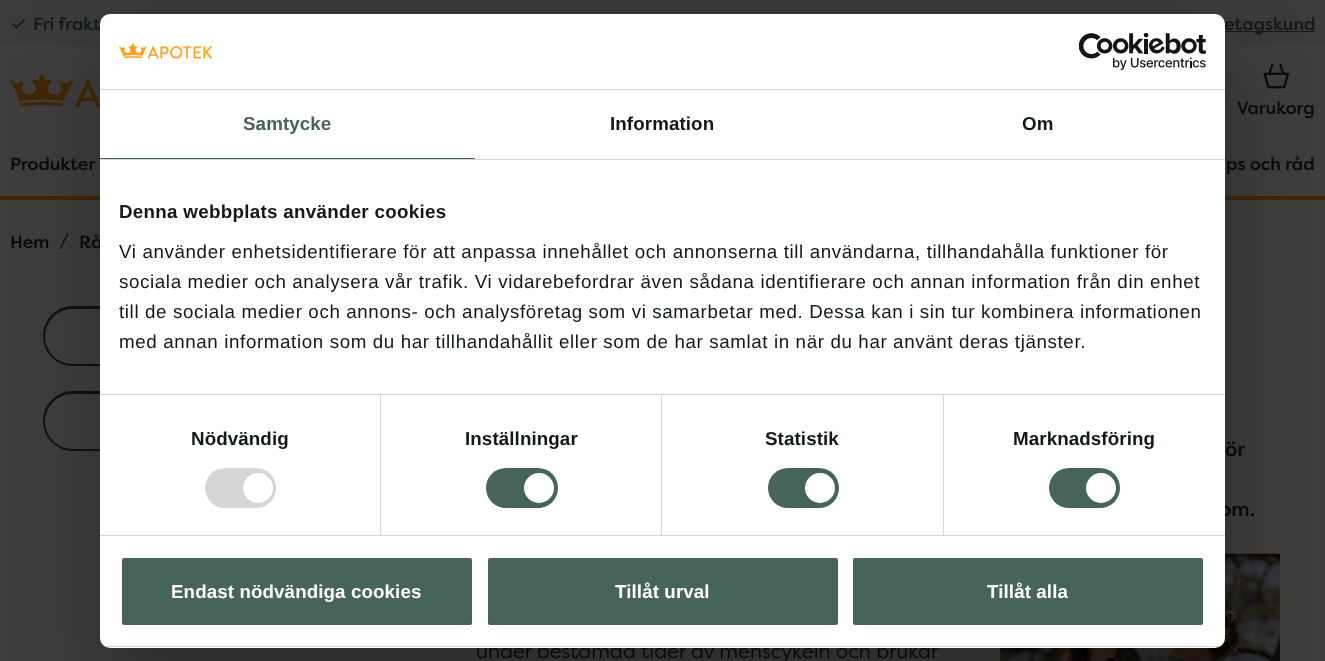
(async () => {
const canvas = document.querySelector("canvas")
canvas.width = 1325
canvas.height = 661
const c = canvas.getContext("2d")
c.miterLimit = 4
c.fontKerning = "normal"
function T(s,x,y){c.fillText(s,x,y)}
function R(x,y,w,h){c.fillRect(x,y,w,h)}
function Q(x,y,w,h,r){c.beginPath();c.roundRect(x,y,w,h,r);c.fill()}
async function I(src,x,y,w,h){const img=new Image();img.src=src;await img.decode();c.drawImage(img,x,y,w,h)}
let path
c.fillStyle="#3f3e3d"
R(0,0,1325,661)
c.fillStyle="#3a3b3a"
R(0,0,1325,46)
path = new Path2D("M24.5 19.5l-8 8l-3.5-3.5")
c.strokeStyle="#121917"
c.lineWidth=1.5
c.lineCap="round"
c.lineJoin="round"
c.stroke(path)
c.font="500 17.5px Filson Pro"
c.fillStyle="#121917"
T("Fri frakt",33,30)
R(1225,31,90,1)
T("etagskund",1224,30)
await I("1.png",10,74,90,34)
await I("2.png",1263,63,27,26)
c.fillStyle="#0a0a0a"
T("Varukorg",1237,114)
T("Produkter",10,170)
T("ps och råd",1226,170)
c.fillStyle="#402806"
R(0,196,1325,4)
c.fillStyle="#0a0a0a"
T("Hem",10,248)
c.font="20px Filson Pro"
T("/",59,248)
c.font="500 17.5px Filson Pro"
T("Rå",79,248)
c.beginPath()
c.roundRect(44.5,307.5,344,57,28.5)
c.strokeStyle="#0d1311"
c.lineWidth=3
c.lineJoin="miter"
c.stroke()
c.fillStyle="#3f3f3f"
Q(45,309,343,55,27.5)
c.beginPath()
c.roundRect(44.5,392.5,344,57,28.5)
c.stroke()
Q(45,394,343,55,27.5)
c.font="500 20px Filson Pro"
c.fillStyle="#0a0a0a"
T("ör",1225,456)
T("om.",1219,516)
c.font="20px Filson Pro"
T("under bestämda tider av menscykeln och brukar",476,658)
await I("3.png",1000,553,280,108)
c.fillStyle="#0000004d"
c.filter="blur(42.5px)"
c.beginPath()
c.roundRect(100,54,1125,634,10)
c.fill()
c.filter="none"
c.fillStyle="#fff"
Q(100,14,1125,634,10)
c.fillStyle="#d6d6d6"
R(100,89,1125,1)
await I("4.png",118,43,95,16)
await I("5.png",1079,33,127,37)
R(100,159,1125,1)
c.fillStyle="#47645a"
R(100,158,375,1)
c.letterSpacing="0.1px"
c.font="bold 18.75px Liberation Sans"
T("Samtycke",243,130)
c.fillStyle="#121917"
T("Information",610,130)
T("Om",1022,130)
c.fillStyle="#d6d6d6"
R(100,394,1125,1)
c.letterSpacing="0.3px"
c.fillStyle="#121917"
T("Denna webbplats använder cookies",119,218)
c.letterSpacing="0.62px"
c.font="18.75px Liberation Sans"
T("Vi använder enhetsidentifierare för att anpassa innehållet och annonserna till användarna, tillhandahålla funktioner för",119,258)
T("sociala medier och analysera vår trafik. Vi vidarebefordrar även sådana identifierare och annan information från din enhet",119,288)
T("till de sociala medier och annons- och analysföretag som vi samarbetar med. Dessa kan i sin tur kombinera informationen",119,318)
T("med annan information som du har tillhandahållit eller som de har samlat in när du har använt deras tjänster.",119,348)
c.fillStyle="#d6d6d6"
R(100,535,1125,1)
R(380,395,1,140)
c.letterSpacing="0.1px"
c.font="bold 18.75px Liberation Sans"
c.fillStyle="#121917"
T("Nödvändig",191,445)
c.fillStyle="#d6d6d6"
Q(205,468,71,40,20)
c.fillStyle="#fff"
c.beginPath()
c.arc(258,488,15,0,7)
c.fill()
c.fillStyle="#d6d6d6"
R(661,395,1,140)
c.fillStyle="#121917"
T("Inställningar",465,445)
c.fillStyle="#47645a"
Q(486,468,72,40,20)
c.fillStyle="#fff"
c.beginPath()
c.arc(539,488,15,0,7)
c.fill()
c.fillStyle="#d6d6d6"
R(943,395,1,140)
c.fillStyle="#121917"
T("Statistik",765,445)
c.fillStyle="#47645a"
Q(768,468,71,40,20)
c.fillStyle="#fff"
c.beginPath()
c.arc(820,488,15,0,7)
c.fill()
c.fillStyle="#121917"
T("Marknadsföring",1013,445)
c.fillStyle="#47645a"
Q(1049,468,71,40,20)
c.fillStyle="#fff"
c.beginPath()
c.arc(1101,488,15,0,7)
c.fill()
c.save()
c.beginPath()
c.roundRect(100,14,1125,634,10)
c.clip()
c.fillStyle="#d6d6d6"
R(100,646,1125,1)
c.restore()
c.fillStyle="#47645a"
c.beginPath()
c.roundRect(120.5,556.5,353,70,3.5)
c.fill()
c.strokeStyle="#fff"
c.stroke()
c.fillStyle="#fff"
T("Endast nödvändiga cookies",171,598)
c.fillStyle="#47645a"
c.beginPath()
c.roundRect(486.5,556.5,353,70,3.5)
c.fill()
c.stroke()
c.fillStyle="#fff"
T("Tillåt urval",615,598)
c.fillStyle="#47645a"
c.beginPath()
c.roundRect(851.5,556.5,353,70,3.5)
c.fill()
c.stroke()
c.fillStyle="#fff"
T("Tillåt alla",987,598)
})()
